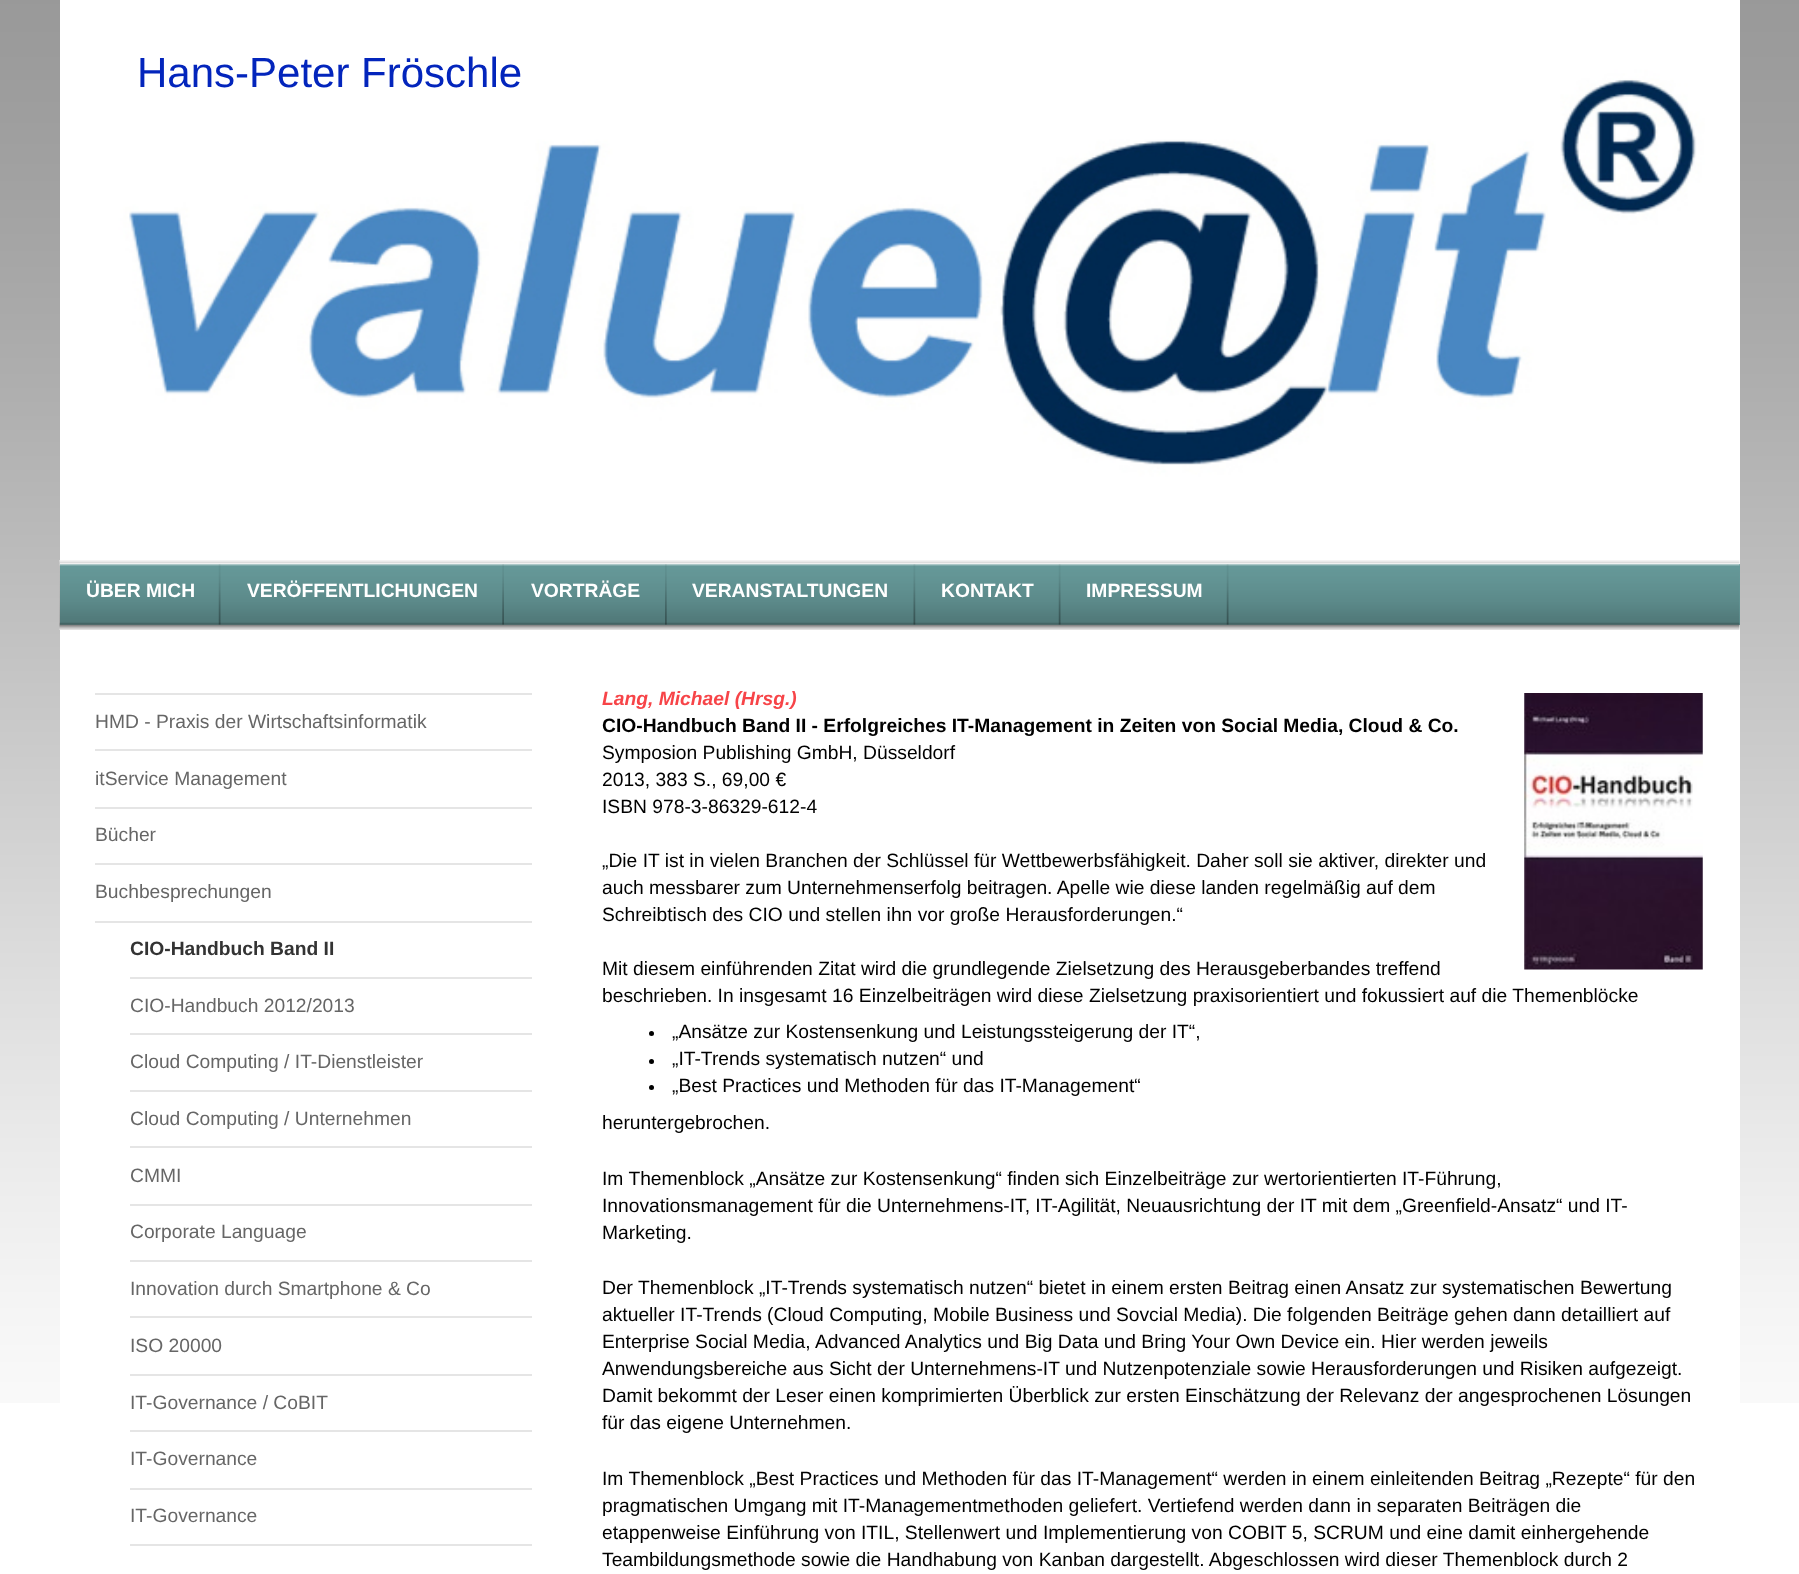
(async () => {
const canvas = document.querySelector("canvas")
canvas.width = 1799
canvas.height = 1574
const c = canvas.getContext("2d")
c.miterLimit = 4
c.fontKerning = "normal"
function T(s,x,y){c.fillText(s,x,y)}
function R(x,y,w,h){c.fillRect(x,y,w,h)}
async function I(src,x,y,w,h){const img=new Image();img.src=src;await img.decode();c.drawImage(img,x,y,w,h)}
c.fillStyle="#fff"
R(0,0,1799,1574)
await I("1.png",0,0,1799,1403)
R(60,0,1680,1403)
await I("2.png",77,0,1645,546)
c.font="42px Liberation Sans"
c.fillStyle="#0325bc"
T("Hans-Peter Fröschle",137,87)
await I("3.png",59,560,1681,4)
c.fillStyle="#699"
R(60,564,1680,61)
await I("9.png",59,624,1681,6)
await I("4.png",59,563,1681,62)
await I("5.png",218,564,3,61)
c.font="bold 19.25px Liberation Sans"
c.fillStyle="#fff"
T("ÜBER MICH",86,597)
await I("6.png",502,564,2,61)
T("VERÖFFENTLICHUNGEN",247,597)
await I("7.png",665,564,2,61)
T("VORTRÄGE",531,597)
await I("8.png",913,564,3,61)
T("VERANSTALTUNGEN",692,597)
await I("5.png",1058,564,3,61)
T("KONTAKT",941,597)
await I("5.png",1226,564,3,61)
T("IMPRESSUM",1086,597)
c.fillStyle="#e5e5e5"
R(95,693,437,2)
c.font="19.25px Liberation Sans"
c.fillStyle="#666"
T("HMD - Praxis der Wirtschaftsinformatik",95,728)
c.fillStyle="#e5e5e5"
R(95,749,437,2)
c.fillStyle="#666"
T("itService Management",95,785)
c.fillStyle="#e5e5e5"
R(95,807,437,2)
c.fillStyle="#666"
T("Bücher",95,841)
c.fillStyle="#e5e5e5"
R(95,863,437,2)
R(95,921,437,2)
c.fillStyle="#666"
T("Buchbesprechungen",95,898)
c.font="bold 19.25px Liberation Sans"
c.fillStyle="#333"
T("CIO-Handbuch Band II",130,955)
c.fillStyle="#e5e5e5"
R(130,977,402,2)
c.font="19.25px Liberation Sans"
c.fillStyle="#666"
T("CIO-Handbuch 2012/2013",130,1012)
c.fillStyle="#e5e5e5"
R(130,1033,402,2)
c.fillStyle="#666"
T("Cloud Computing / IT-Dienstleister",130,1068)
c.fillStyle="#e5e5e5"
R(130,1090,402,2)
c.fillStyle="#666"
T("Cloud Computing / Unternehmen",130,1125)
c.fillStyle="#e5e5e5"
R(130,1146,402,2)
c.fillStyle="#666"
T("CMMI",130,1182)
c.fillStyle="#e5e5e5"
R(130,1204,402,2)
c.fillStyle="#666"
T("Corporate Language",130,1238)
c.fillStyle="#e5e5e5"
R(130,1260,402,2)
c.fillStyle="#666"
T("Innovation durch Smartphone & Co",130,1295)
c.fillStyle="#e5e5e5"
R(130,1316,402,2)
c.fillStyle="#666"
T("ISO 20000",130,1352)
c.fillStyle="#e5e5e5"
R(130,1374,402,2)
c.fillStyle="#666"
T("IT-Governance / CoBIT",130,1409)
c.fillStyle="#e5e5e5"
R(130,1430,402,2)
c.fillStyle="#666"
T("IT-Governance",130,1465)
c.fillStyle="#e5e5e5"
R(130,1488,402,2)
c.fillStyle="#666"
T("IT-Governance",130,1522)
c.fillStyle="#e5e5e5"
R(130,1544,402,2)
c.font="italic bold 19.25px Liberation Sans"
c.fillStyle="#f74448"
T("Lang, Michael (Hrsg.)",602,705)
c.font="bold 19.25px Liberation Sans"
c.fillStyle="#000"
T("CIO-Handbuch Band II - Erfolgreiches IT-Management in Zeiten von Social Media, Cloud & Co.",602,732)
c.font="19.25px Liberation Sans"
T("Symposion Publishing GmbH, Düsseldorf",602,759)
T("2013, 383 S., 69,00 €",602,786)
T("ISBN 978-3-86329-612-4",602,813)
T("„Die IT ist in vielen Branchen der Schlüssel für Wettbewerbsfähigkeit. Daher soll sie aktiver, direkter und",602,867)
T("auch messbarer zum Unternehmenserfolg beitragen. Apelle wie diese landen regelmäßig auf dem",602,894)
T("Schreibtisch des CIO und stellen ihn vor große Herausforderungen.“",602,921)
T("Mit diesem einführenden Zitat wird die grundlegende Zielsetzung des Herausgeberbandes treffend",602,975)
T("beschrieben. In insgesamt 16 Einzelbeiträgen wird diese Zielsetzung praxisorientiert und fokussiert auf die Themenblöcke",602,1002)
c.beginPath()
c.arc(651.5,1033.5,2.5,0,7)
c.fill()
T("„Ansätze zur Kostensenkung und Leistungssteigerung der IT“,",672,1038)
c.beginPath()
c.arc(651.5,1061.5,2.5,0,7)
c.fill()
T("„IT-Trends systematisch nutzen“ und",672,1065)
c.beginPath()
c.arc(651.5,1087.5,2.5,0,7)
c.fill()
T("„Best Practices und Methoden für das IT-Management“",672,1092)
T("heruntergebrochen.",602,1129)
T("Im Themenblock „Ansätze zur Kostensenkung“ finden sich Einzelbeiträge zur wertorientierten IT-Führung,",602,1185)
T("Innovationsmanagement für die Unternehmens-IT, IT-Agilität, Neuausrichtung der IT mit dem „Greenfield-Ansatz“ und IT-",602,1212)
T("Marketing.",602,1239)
T("Der Themenblock „IT-Trends systematisch nutzen“ bietet in einem ersten Beitrag einen Ansatz zur systematischen Bewertung",602,1294)
T("aktueller IT-Trends (Cloud Computing, Mobile Business und Sovcial Media). Die folgenden Beiträge gehen dann detailliert auf",602,1321)
T("Enterprise Social Media, Advanced Analytics und Big Data und Bring Your Own Device ein. Hier werden jeweils",602,1348)
T("Anwendungsbereiche aus Sicht der Unternehmens-IT und Nutzenpotenziale sowie Herausforderungen und Risiken aufgezeigt.",602,1375)
T("Damit bekommt der Leser einen komprimierten Überblick zur ersten Einschätzung der Relevanz der angesprochenen Lösungen",602,1402)
T("für das eigene Unternehmen.",602,1429)
T("Im Themenblock „Best Practices und Methoden für das IT-Management“ werden in einem einleitenden Beitrag „Rezepte“ für den",602,1485)
T("pragmatischen Umgang mit IT-Managementmethoden geliefert. Vertiefend werden dann in separaten Beiträgen die",602,1512)
T("etappenweise Einführung von ITIL, Stellenwert und Implementierung von COBIT 5, SCRUM und eine damit einhergehende",602,1539)
T("Teambildungsmethode sowie die Handhabung von Kanban dargestellt. Abgeschlossen wird dieser Themenblock durch 2",602,1566)
await I("10.png",1524,693,179,277)
})()
